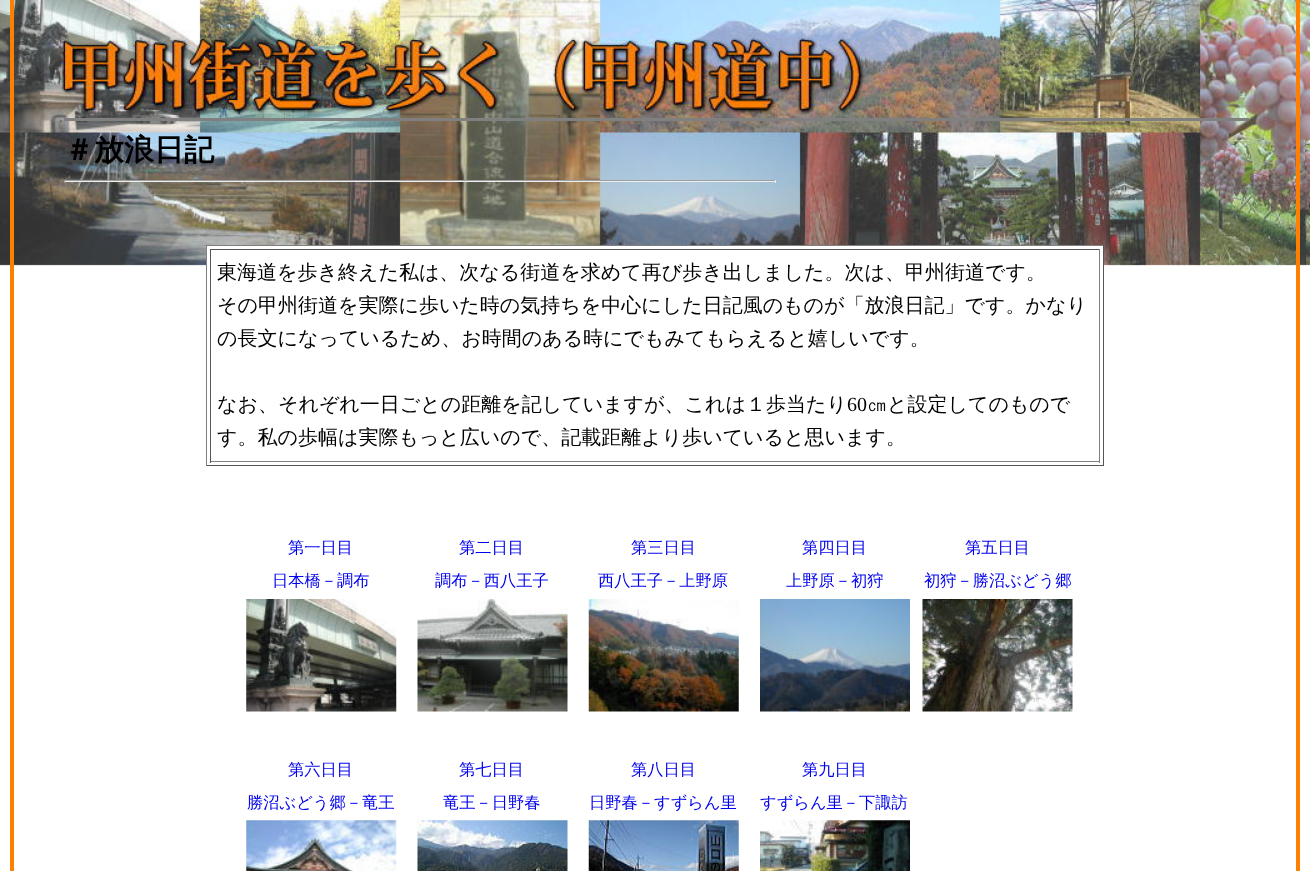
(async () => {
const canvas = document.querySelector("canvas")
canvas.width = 1310
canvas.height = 871
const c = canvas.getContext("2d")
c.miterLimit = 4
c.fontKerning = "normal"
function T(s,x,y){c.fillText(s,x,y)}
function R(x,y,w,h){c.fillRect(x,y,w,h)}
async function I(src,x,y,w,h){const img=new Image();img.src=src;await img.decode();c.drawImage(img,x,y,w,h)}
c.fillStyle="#fff"
R(0,0,1310,871)
await I("1.png",0,0,1310,266)
c.strokeStyle="#ff8000"
c.lineWidth=4
c.strokeRect(12,-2,1286,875)
c.fillStyle="#808080"
R(64,118,1185,3)
c.font="bold 30px WenQuanYi Zen Hei"
c.fillStyle="#000"
T("＃放浪日記",64,160)
c.fillStyle="#9f9f9f"
R(64,180,712,1)
c.fillStyle="#eee"
R(775,180,1,3)
R(64,181,712,1)
c.fillStyle="#9f9f9f"
R(64,180,1,3)
c.fillStyle="#fff"
R(207,246,896,20)
c.fillStyle="#808080"
R(206,245,898,1)
c.fillStyle="#555"
R(1103,245,1,221)
R(206,465,898,1)
c.fillStyle="#808080"
R(206,245,1,221)
c.fillStyle="#555"
R(210,249,890,1)
c.fillStyle="#808080"
R(1099,249,1,214)
R(210,461,890,1)
c.fillStyle="#555"
R(210,249,1,214)
c.font="500 20px WenQuanYi Zen Hei"
c.fillStyle="#000"
T("東海道を歩き終えた私は、次なる街道を求めて再び歩き出しました。次は、甲州街道です。",217,279)
T("その甲州街道を実際に歩いた時の気持ちを中心にした日記風のものが「放浪日記」です。かなり",217,312)
T("の長文になっているため、お時間のある時にでもみてもらえると嬉しいです。",217,345)
T("なお、それぞれ一日ごとの距離を記していますが、これは１歩当たり",217,411)
c.font="20px Liberation Serif"
T("60",847,411)
c.font="500 20px WenQuanYi Zen Hei"
T("㎝と設定してのもので",867,411)
T("す。私の歩幅は実際もっと広いので、記載距離より歩いていると思います。",217,444)
c.font="500 16.25px WenQuanYi Zen Hei"
c.fillStyle="#00e"
T("第一日目",288,553)
T("日本橋－調布",272,586)
await I("2.png",246,599,151,113)
T("第二日目",459,553)
T("調布－西八王子",435,586)
await I("3.png",417,599,151,113)
T("第三日目",631,553)
T("西八王子－上野原",598,586)
await I("4.png",588,599,151,113)
T("第四日目",802,553)
T("上野原－初狩",786,586)
await I("5.png",760,599,150,113)
T("第五日目",965,553)
T("初狩－勝沼ぶどう郷",924,586)
await I("6.png",922,599,151,113)
T("第六日目",288,775)
T("勝沼ぶどう郷－竜王",247,808)
await I("7.png",246,820,151,51)
T("第七日目",459,775)
T("竜王－日野春",443,808)
await I("8.png",417,820,151,51)
T("第八日目",631,775)
T("日野春－すずらん里",589,808)
await I("9.png",588,820,151,51)
T("第九日目",802,775)
T("すずらん里－下諏訪",760,808)
await I("10.png",760,820,150,51)
})()
